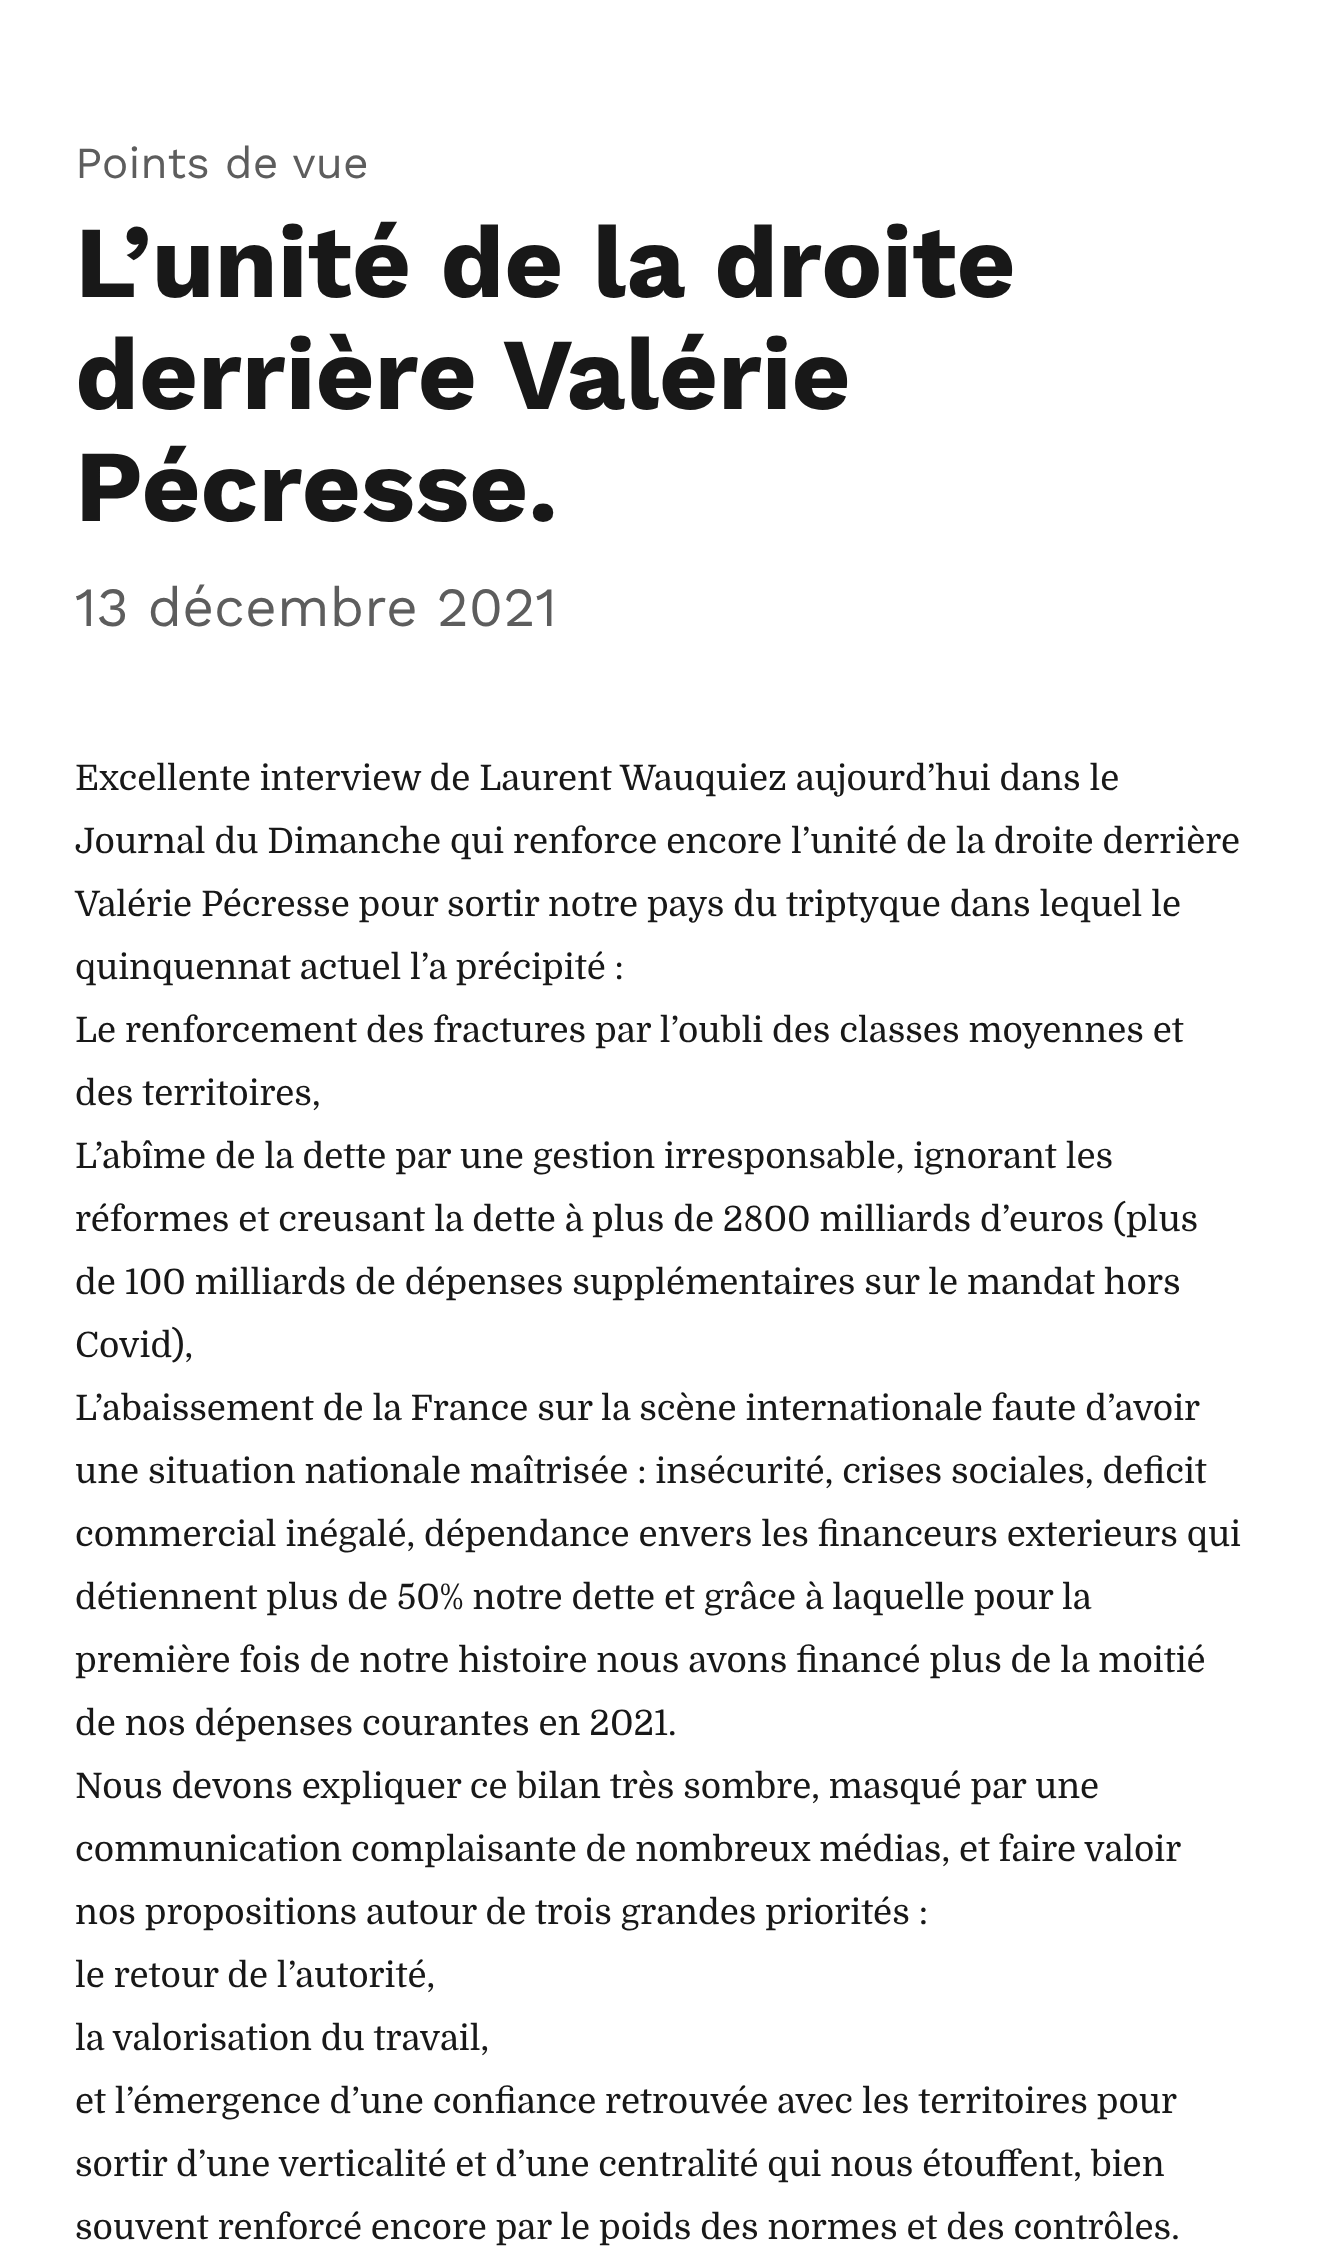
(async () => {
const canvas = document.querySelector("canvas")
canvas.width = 1321
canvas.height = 2247
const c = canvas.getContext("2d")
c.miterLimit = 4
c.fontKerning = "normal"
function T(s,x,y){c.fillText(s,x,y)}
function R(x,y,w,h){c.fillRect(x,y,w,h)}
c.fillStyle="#fff"
R(0,0,1321,2247)
c.font="44.5px Work Sans"
c.fillStyle="#5d5d5d"
T("Points de vue",75,178)
c.font="bold 102px Work Sans"
c.fillStyle="#181818"
T("L’unité de la droite",75,297)
T("derrière Valérie",75,409)
T("Pécresse.",75,521)
c.font="55.25px Work Sans"
c.fillStyle="#5d5d5d"
T("13 décembre 2021",75,626)
c.font="35px Domine"
c.fillStyle="#181818"
T("Excellente interview de Laurent Wauquiez aujourd’hui dans le",75,790)
T("Journal du Dimanche qui renforce encore l’unité de la droite derrière",75,853)
T("Valérie Pécresse pour sortir notre pays du triptyque dans lequel le",75,916)
T("quinquennat actuel l’a précipité :",75,979)
T("Le renforcement des fractures par l’oubli des classes moyennes et",75,1042)
T("des territoires,",75,1105)
T("L’abîme de la dette par une gestion irresponsable, ignorant les",75,1168)
T("réformes et creusant la dette à plus de 2800 milliards d’euros (plus",75,1231)
T("de 100 milliards de dépenses supplémentaires sur le mandat hors",75,1294)
T("Covid),",75,1357)
T("L’abaissement de la France sur la scène internationale faute d’avoir",75,1420)
T("une situation nationale maîtrisée : insécurité, crises sociales, deficit",75,1483)
T("commercial inégalé, dépendance envers les financeurs exterieurs qui",75,1546)
T("détiennent plus de 50% notre dette et grâce à laquelle pour la",75,1609)
T("première fois de notre histoire nous avons financé plus de la moitié",75,1672)
T("de nos dépenses courantes en 2021.",75,1735)
T("Nous devons expliquer ce bilan très sombre, masqué par une",75,1798)
T("communication complaisante de nombreux médias, et faire valoir",75,1861)
T("nos propositions autour de trois grandes priorités :",75,1924)
T("le retour de l’autorité,",75,1987)
T("la valorisation du travail,",75,2050)
T("et l’émergence d’une confiance retrouvée avec les territoires pour",75,2113)
T("sortir d’une verticalité et d’une centralité qui nous étouffent, bien",75,2176)
T("souvent renforcé encore par le poids des normes et des contrôles.",75,2239)
})()
